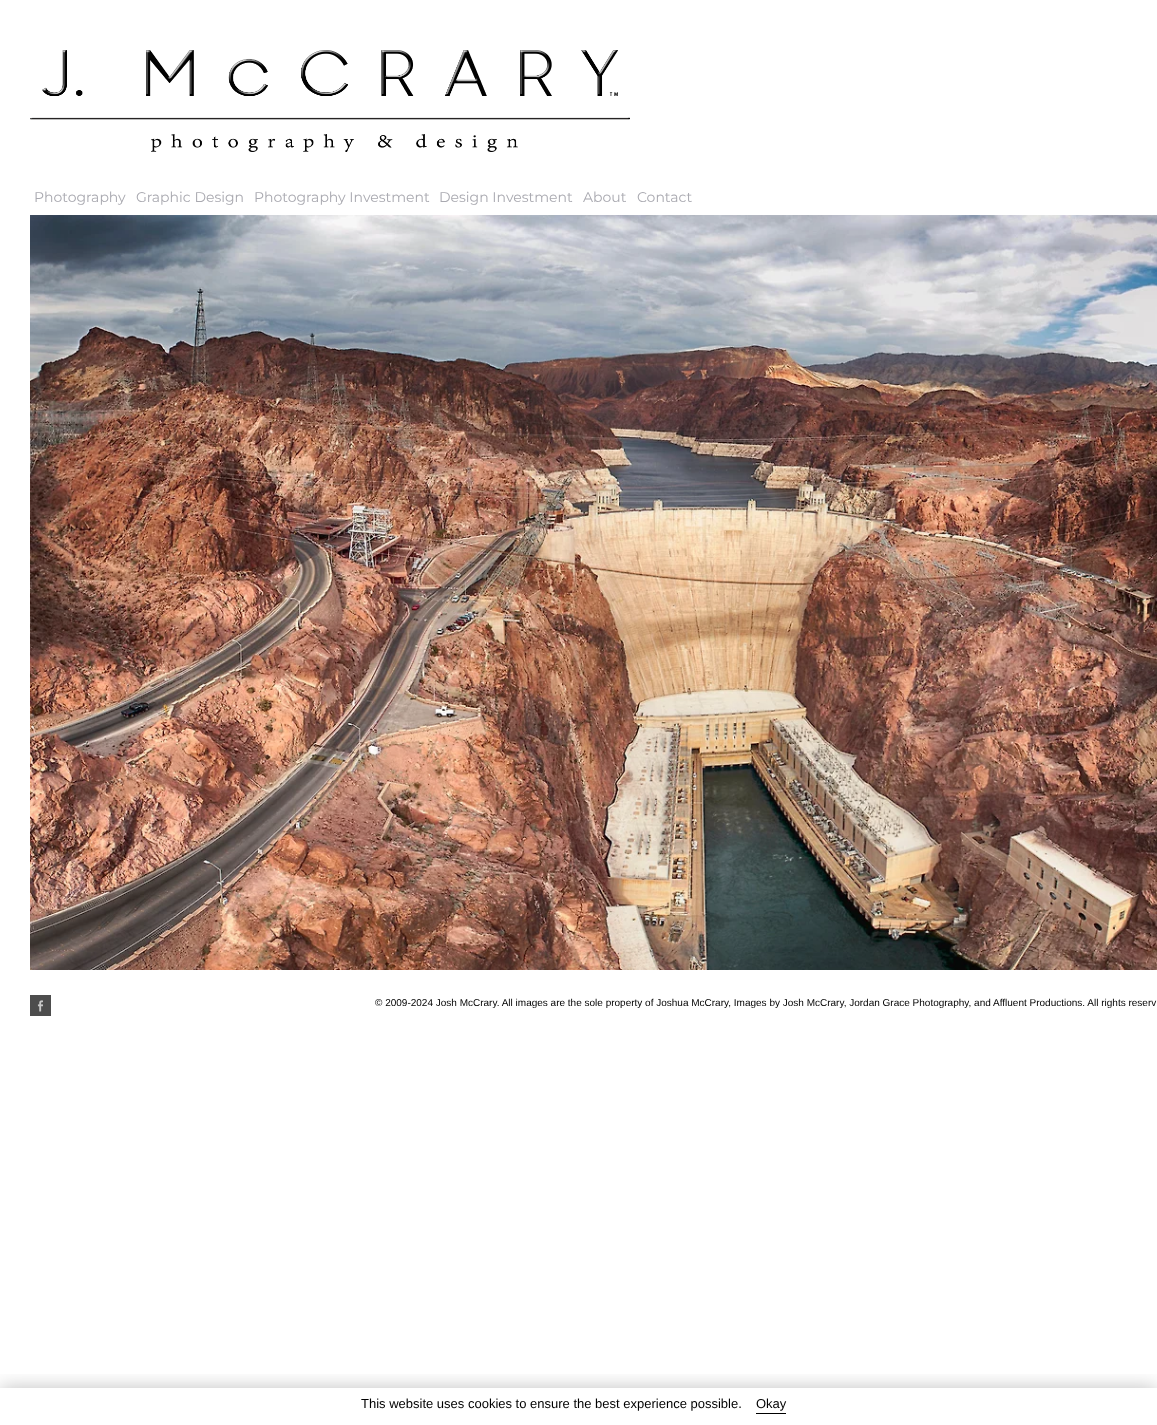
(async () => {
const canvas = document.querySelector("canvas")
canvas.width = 1157
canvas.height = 1425
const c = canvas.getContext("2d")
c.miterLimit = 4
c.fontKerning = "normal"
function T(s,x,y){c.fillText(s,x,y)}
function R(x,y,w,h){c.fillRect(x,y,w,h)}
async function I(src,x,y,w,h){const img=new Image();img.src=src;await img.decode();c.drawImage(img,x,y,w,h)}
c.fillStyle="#fff"
R(0,0,1157,1425)
await I("1.png",30,50,600,102)
c.font="14px Montserrat"
c.fillStyle="#a9a9b0"
T("Photography",34,202)
T("Graphic Design",136,202)
T("Photography Investment",254,202)
T("Design Investment",439,202)
T("About",583,202)
T("Contact",637,202)
await I("2.png",30,215,1127,755)
c.fillStyle="#4d4d4d"
R(30,995,21,21)
await I("3.png",37,1000,6,12)
c.font="10px Liberation Sans"
c.fillStyle="#000"
T("© 2009-2024 Josh McCrary. All images are the sole property of Joshua McCrary, Images by Josh McCrary, Jordan Grace Photography, and Affluent Productions. All rights reserv",375,1006)
c.save()
c.beginPath()
c.rect(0,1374,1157,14)
c.clip()
c.fillStyle="#00000040"
c.filter="blur(10px)"
c.beginPath()
c.rect(0,1388,1157,37)
c.fill()
c.filter="none"
c.restore()
c.font="13px Liberation Sans"
T("This website uses cookies to ensure the best experience possible.",361,1408)
R(756,1413,30,1)
T("Okay",756,1408)
})()
